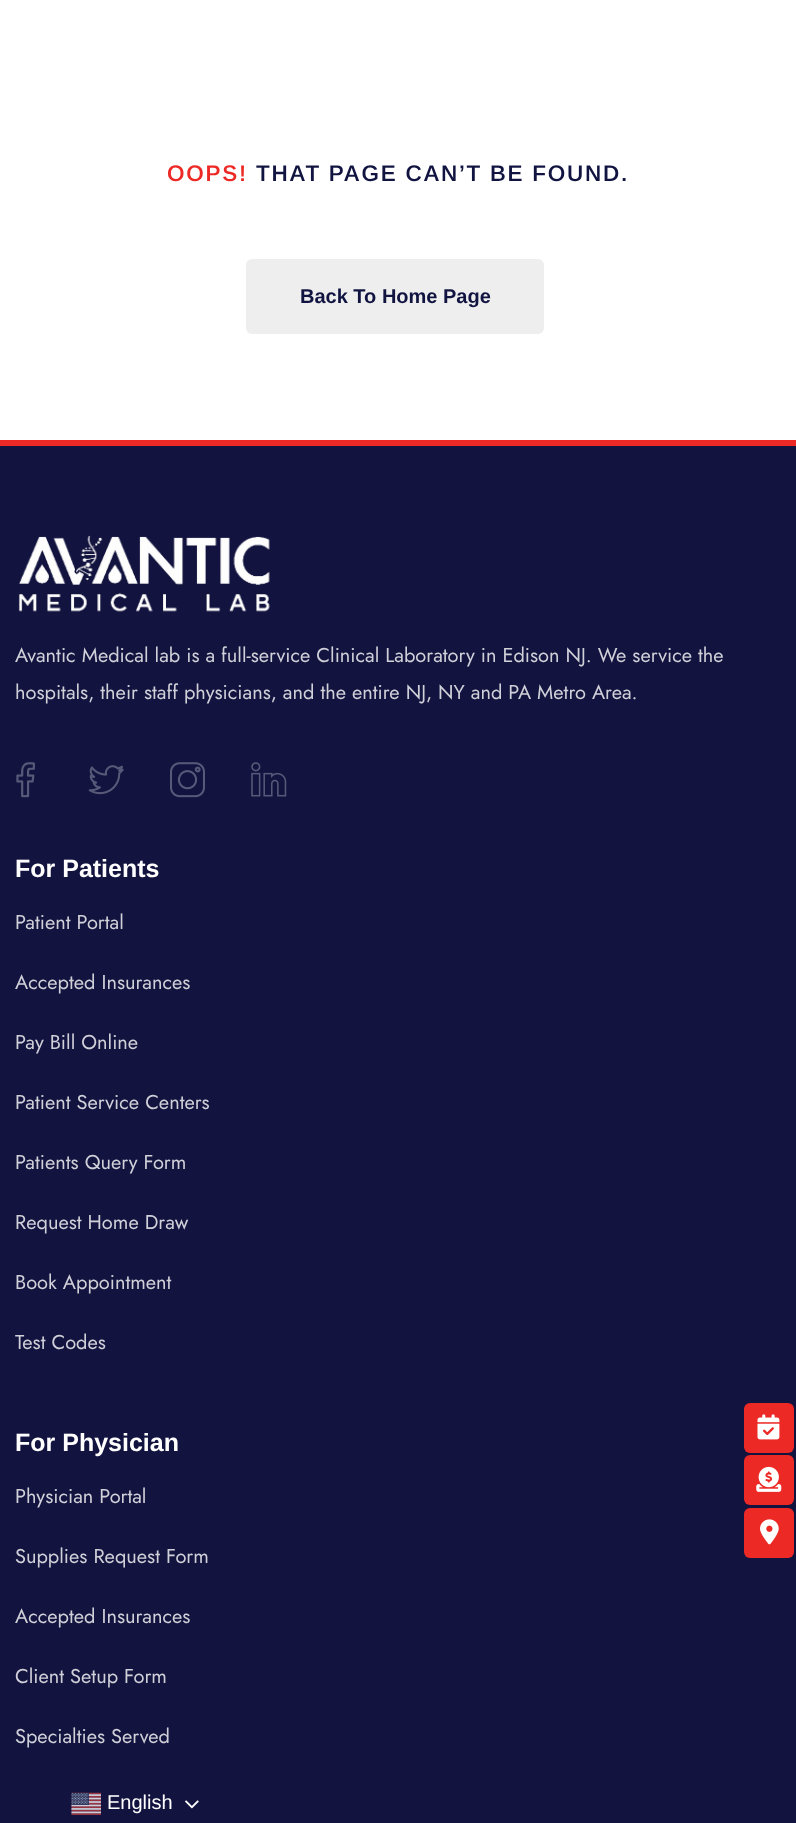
(async () => {
const canvas = document.querySelector("canvas")
canvas.width = 796
canvas.height = 1823
const c = canvas.getContext("2d")
c.miterLimit = 4
c.fontKerning = "normal"
function T(s,x,y){c.fillText(s,x,y)}
function R(x,y,w,h){c.fillRect(x,y,w,h)}
function Q(x,y,w,h,r){c.beginPath();c.roundRect(x,y,w,h,r);c.fill()}
async function I(src,x,y,w,h){const img=new Image();img.src=src;await img.decode();c.drawImage(img,x,y,w,h)}
c.fillStyle="#fff"
R(0,0,796,1823)
c.letterSpacing="1.75px"
c.font="600 22.5px Arimo"
c.fillStyle="#ed2925"
T("OOPS!",167,181)
c.fillStyle="#111440"
T("THAT PAGE CAN’T BE FOUND.",256,181)
c.fillStyle="#eee"
Q(246,259,298,75,6)
c.letterSpacing="0px"
c.font="bold 20px Arimo"
c.fillStyle="#111440"
T("Back To Home Page",300,303)
c.fillStyle="#12133f"
R(0,446,796,1377)
c.fillStyle="#ed2925"
R(0,440,796,6)
await I("1.png",18,535,252,77)
c.font="20px Jost"
c.fillStyle="#d0d0d9"
T("Avantic Medical lab is a full-service Clinical Laboratory in Edison NJ. We service the",15,662)
T("hospitals, their staff physicians, and the entire NJ, NY and PA Metro Area.",15,699)
await I("2.png",16,762,19,36)
await I("3.png",88,765,36,30)
await I("4.png",170,762,35,36)
await I("5.png",251,762,36,35)
c.font="bold 25px Arimo"
c.fillStyle="#fff"
T("For Patients",15,877)
c.font="20px Jost"
c.fillStyle="#d0d0d9"
T("Patient Portal",15,929)
T("Accepted Insurances",15,989)
T("Pay Bill Online",15,1049)
T("Patient Service Centers",15,1109)
T("Patients Query Form",15,1169)
T("Request Home Draw",15,1229)
T("Book Appointment",15,1289)
T("Test Codes",15,1349)
c.font="bold 25px Arimo"
c.fillStyle="#fff"
T("For Physician",15,1451)
c.font="20px Jost"
c.fillStyle="#d0d0d9"
T("Physician Portal",15,1503)
T("Supplies Request Form",15,1563)
T("Accepted Insurances",15,1623)
T("Client Setup Form",15,1683)
T("Specialties Served",15,1743)
c.fillStyle="#ed2925"
Q(744,1403,50,50,6)
await I("6.png",757,1414,23,26)
Q(744,1455,50,50,6)
await I("7.png",756,1466,26,26)
Q(744,1508,50,50,6)
await I("8.png",760,1519,19,26)
await I("9.png",71,1792,30,23)
c.font="20px Liberation Sans"
c.fillStyle="#fff"
T("English",107,1809)
await I("10.png",185,1800,14,9)
})()
